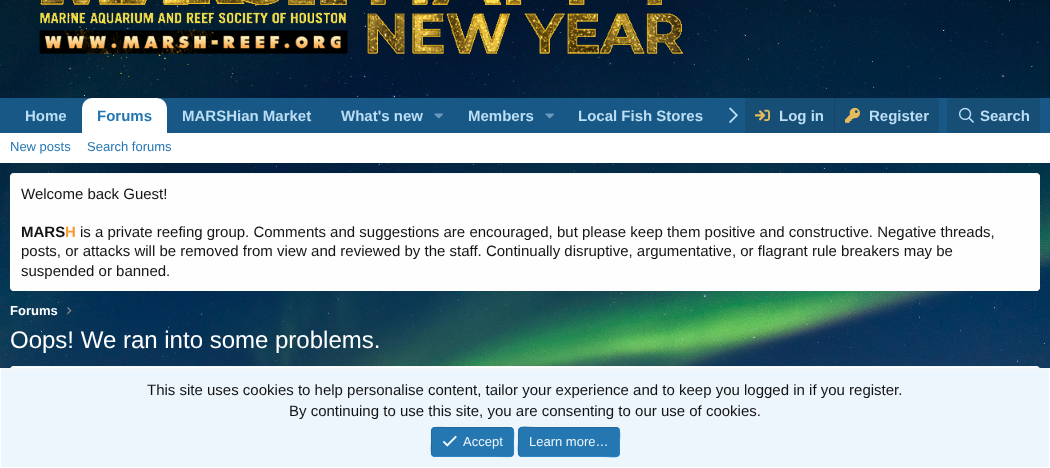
(async () => {
const canvas = document.querySelector("canvas")
canvas.width = 1050
canvas.height = 468
const c = canvas.getContext("2d")
c.miterLimit = 4
c.fontKerning = "normal"
function T(s,x,y){c.fillText(s,x,y)}
function R(x,y,w,h){c.fillRect(x,y,w,h)}
function Q(x,y,w,h,r){c.beginPath();c.roundRect(x,y,w,h,r);c.fill()}
async function I(src,x,y,w,h){const img=new Image();img.src=src;await img.decode();c.drawImage(img,x,y,w,h)}
let path
c.fillStyle="#fff"
R(0,0,1050,468)
await I("1.png",0,0,1050,368)
await I("2.png",39,0,644,77)
c.fillStyle="#185886"
R(0,98,1050,35)
c.font="bold 15px Liberation Sans"
c.fillStyle="#bcdef5"
T("Home",25,121)
c.fillStyle="#fff"
c.beginPath()
c.roundRect(82,98,85,35,[10,10,0,0])
c.fill()
c.fillStyle="#2577b1"
T("Forums",97,121)
c.fillStyle="#bcdef5"
T("MARSHian Market",182,121)
T("What's new",341,121)
await I("3.png",434,113,9,6)
T("Members",468,121)
await I("3.png",545,113,9,6)
T("Local Fish Stores",578,121)
await I("4.png",729,107,9,16)
c.fillStyle="#174e75"
c.beginPath()
c.roundRect(745,98,194,35,[4,4,0,0])
c.fill()
await I("5.png",755,109,15,12)
c.fillStyle="#bcdef5"
T("Log in",779,121)
c.fillStyle="#174566"
R(834,98,1,35)
await I("6.png",845,107,15,16)
c.fillStyle="#bcdef5"
T("Register",869,121)
c.fillStyle="#174e75"
c.beginPath()
c.roundRect(947,98,93,35,[4,4,0,0])
c.fill()
await I("7.png",959,107,15,16)
c.fillStyle="#bcdef5"
T("Search",980,121)
c.fillStyle="#fff"
R(0,133,1050,30)
c.font="13px Liberation Sans"
c.fillStyle="#2577b1"
T("New posts",10,151)
T("Search forums",87,151)
c.fillStyle="#fefefe"
Q(10,173,1030,118,4)
path = new Path2D("M11.5 174.5l2.5-1h1022l2.5 1")
c.strokeStyle="#f7f7f7"
c.stroke(path)
path = new Path2D("M1038.5 174.5c.5 .5 1 1.5 1 2.5v110c0 1-.5 2-1 2.5c-.5 .5-1.5 1-2.5 1h-1022c-1 0-2-.5-2.5-1c-.5-.5-1-1.5-1-2.5v-110c0-1 .5-2 1-2.5")
c.strokeStyle="#fff"
c.stroke(path)
c.font="15px Liberation Sans"
c.fillStyle="#141414"
T("Welcome back Guest!",21,199)
c.font="bold 15px Liberation Sans"
T("MARS",21,237)
c.fillStyle="#f93"
T("H",65,237)
c.font="15px Liberation Sans"
c.fillStyle="#141414"
T("is a private reefing group. Comments and suggestions are encouraged, but please keep them positive and constructive. Negative threads,",80,237)
T("posts, or attacks will be removed from view and reviewed by the staff. Continually disruptive, argumentative, or flagrant rule breakers may be",21,256)
T("suspended or banned.",21,276)
c.font="bold 13px Liberation Sans"
c.fillStyle="#fff"
T("Forums",10,315)
await I("8.png",67,307,5,8)
c.font="24px Liberation Sans"
T("Oops! We ran into some problems.",10,348)
c.fillStyle="#fefefe"
Q(10,366,1030,33,4)
path = new Path2D("M11.5 367.5l2.5-1h1022l2.5 1")
c.strokeStyle="#f7f7f7"
c.stroke(path)
path = new Path2D("M1038.5 367.5c2 2.5 1 16 1 19c0 2.5 2 12-3.5 12h-1022l-2.5-1.5l-1-2c0-4-1-25.5 1-27.5")
c.strokeStyle="#fff"
c.stroke(path)
c.fillStyle="#edf6fd"
R(1,369,1048,98)
c.fillStyle="#f7f7f7"
R(0,368,1050,1)
c.fillStyle="#fff"
R(1049,368,1,1)
R(0,368,1,1)
c.font="15px Liberation Sans"
c.fillStyle="#141414"
T("This site uses cookies to help personalise content, tailor your experience and to keep you logged in if you register.",147,395)
T("By continuing to use this site, you are consenting to our use of cookies.",289,416)
c.fillStyle="#2577b1"
Q(431,427,83,30,4)
path = new Path2D("M512.5 428.5c2 2 1 10.5 1 13.5c0 17 2 14.5-16 14.5h-62.5l-2.5-1")
c.strokeStyle="#2985c6"
c.stroke(path)
path = new Path2D("M432.5 455.5c-2-2-1-10.5-1-13.5c0-17-2-14.5 16-14.5h62.5l2.5 1")
c.strokeStyle="#21699c"
c.stroke(path)
await I("9.png",442,435,15,12)
c.font="13px Liberation Sans"
c.fillStyle="#edf6fd"
T("Accept",463,446)
c.fillStyle="#2577b1"
Q(518,427,102,30,4)
path = new Path2D("M618.5 428.5c2 2 1 10.5 1 13.5c0 18.5 1.5 14.5-19 14.5h-78.5l-2.5-1")
c.strokeStyle="#2985c6"
c.stroke(path)
path = new Path2D("M519.5 455.5c-2-2-1-10.5-1-13.5c0-18.5-1.5-14.5 19-14.5h78.5l2.5 1")
c.strokeStyle="#21699c"
c.stroke(path)
c.fillStyle="#edf6fd"
T("Learn more…",529,446)
})()
